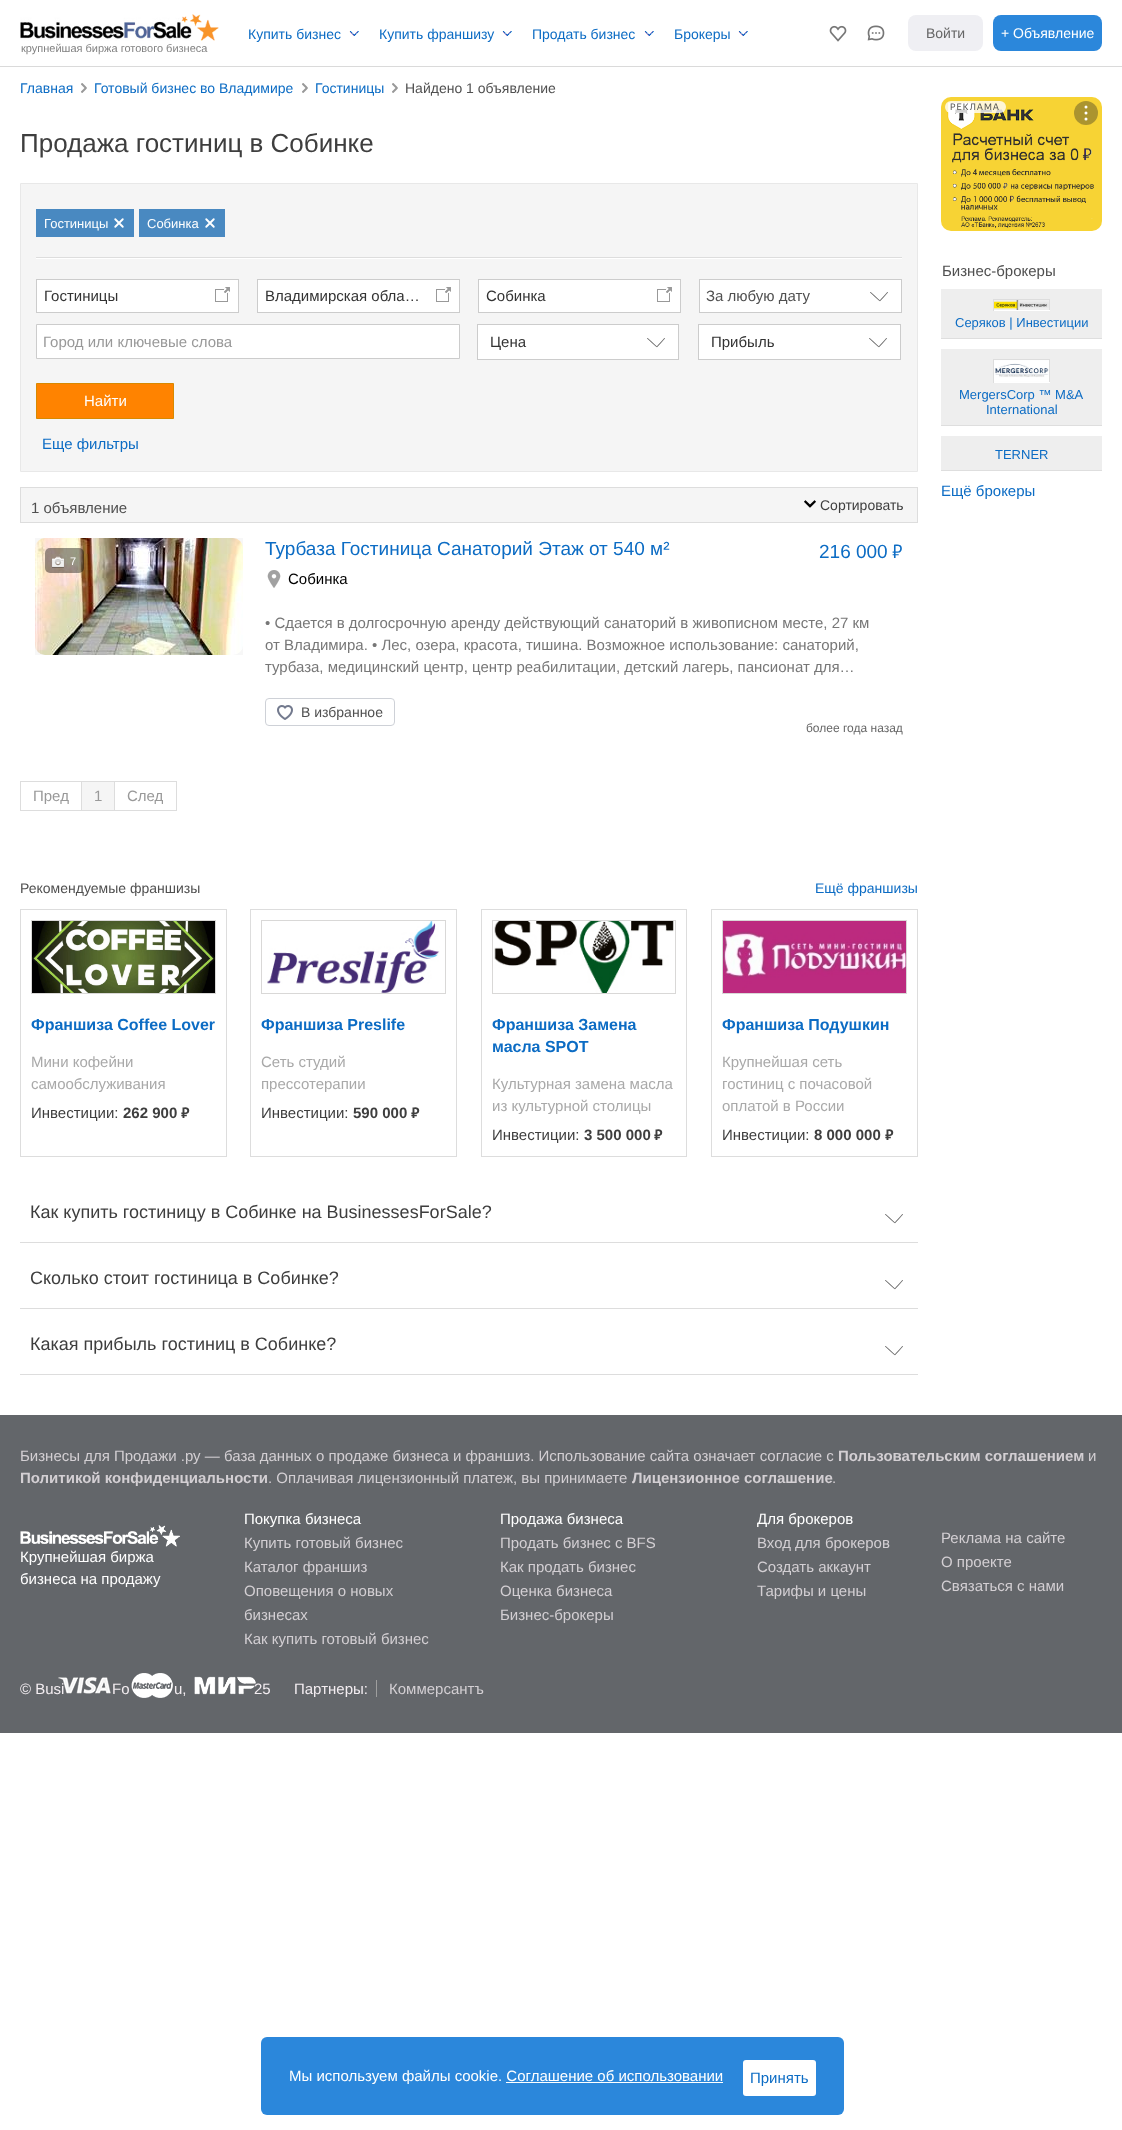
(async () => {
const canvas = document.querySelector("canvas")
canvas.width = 1122
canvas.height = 2130
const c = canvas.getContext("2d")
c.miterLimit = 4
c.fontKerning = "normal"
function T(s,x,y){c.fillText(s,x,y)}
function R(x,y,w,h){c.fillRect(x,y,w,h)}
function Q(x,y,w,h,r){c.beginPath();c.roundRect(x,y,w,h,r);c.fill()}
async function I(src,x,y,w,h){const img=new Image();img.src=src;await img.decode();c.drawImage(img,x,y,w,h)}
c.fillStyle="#fff"
R(0,0,1122,2130)
c.fillStyle="#dadada"
R(0,66,1122,1)
c.font="14px Liberation Sans"
c.fillStyle="#0c6cc4"
T("Купить бизнес",248,39)
await I("1.png",349,31,10,5)
T("Купить франшизу",379,39)
await I("1.png",502,31,10,5)
T("Продать бизнес",532,39)
await I("1.png",644,31,10,5)
T("Брокеры",674,39)
await I("1.png",738,31,10,5)
await I("2.png",20,14,199,27)
c.font="11px Liberation Sans"
c.fillStyle="#808080"
T("крупнейшая биржа готового бизнеса",21,52)
await I("3.png",829,25,18,17)
await I("4.png",867,25,18,16)
c.fillStyle="#efeff3"
Q(908,15,75,36,8)
c.font="14px Liberation Sans"
c.fillStyle="#666"
T("Войти",926,38)
c.fillStyle="#2b87db"
Q(993,15,109,36,8)
c.fillStyle="#fff"
T("+ Объявление",1001,38)
c.fillStyle="#0c6cc4"
T("Главная",20,93)
await I("5.png",81,83,6,10)
T("Готовый бизнес во Владимире",94,93)
await I("5.png",302,83,6,10)
T("Гостиницы",315,93)
await I("5.png",392,83,6,10)
c.fillStyle="#505050"
T("Найдено 1 объявление",405,93)
c.font="26px Liberation Sans"
c.fillStyle="#3e3e3e"
T("Продажа гостиниц в Собинке",20,152)
c.fillStyle="#f5f5f5"
c.beginPath()
c.rect(20.5,183.5,897,288)
c.fill()
c.strokeStyle="#e8e8e8"
c.stroke()
c.fillStyle="#4989c1"
R(36,209,98,28)
c.font="13px Liberation Sans"
c.fillStyle="#fff"
T("Гостиницы",44,228)
await I("6.png",114,218,10,10)
c.fillStyle="#4989c1"
R(139,209,86,28)
c.fillStyle="#fff"
T("Собинка",147,228)
await I("6.png",205,218,10,10)
c.fillStyle="#ddd"
R(36,257,866,1)
c.fillStyle="#fff"
R(36,258,866,1)
R(37,280,201,32)
await I("7.png",215,287,15,15)
c.strokeStyle="#ccc"
c.strokeRect(36.5,279.5,202,33)
c.font="15px Liberation Sans"
c.fillStyle="#333"
T("Гостиницы",44,301)
c.fillStyle="#fff"
R(258,280,201,32)
await I("7.png",436,287,15,15)
c.strokeRect(257.5,279.5,202,33)
c.fillStyle="#333"
T("Владимирская обла…",265,301)
c.fillStyle="#fff"
R(479,280,201,32)
await I("7.png",657,287,15,15)
c.strokeRect(478.5,279.5,202,33)
c.fillStyle="#333"
T("Собинка",486,301)
c.fillStyle="#fff"
R(700,280,201,32)
await I("8.png",870,292,18,10)
c.strokeRect(699.5,279.5,202,33)
c.fillStyle="#505050"
T("За любую дату",706,301)
c.fillStyle="#fff"
c.beginPath()
c.rect(36.5,324.5,423,34)
c.fill()
c.stroke()
c.fillStyle="#999"
T("Город или ключевые слова",43,347)
c.fillStyle="#fff"
R(478,325,200,34)
await I("8.png",647,338,18,10)
c.strokeRect(477.5,324.5,201,35)
c.fillStyle="#333"
T("Цена",490,347)
c.fillStyle="#fff"
R(699,325,201,34)
await I("8.png",869,338,18,10)
c.strokeRect(698.5,324.5,202,35)
c.fillStyle="#333"
T("Прибыль",711,347)
c.fillStyle="#ff8300"
c.beginPath()
c.rect(36.5,383.5,137,35)
c.fill()
c.strokeStyle="#d88900"
c.stroke()
c.fillStyle="#fff"
T("Найти",84,406)
c.fillStyle="#0c6cc4"
T("Еще фильтры",42,449)
c.fillStyle="#f5f5f5"
R(21,488,896,34)
c.fillStyle="#ddd"
R(20,487,898,1)
R(917,487,1,35)
R(20,487,1,35)
c.fillStyle="#505050"
T("1 объявление",31,513)
await I("9.png",804,500,12,8)
c.font="14px Liberation Sans"
c.fillStyle="#3e3e3e"
T("Сортировать",820,510)
c.fillStyle="#ddd"
R(20,522,898,1)
c.fillStyle="#f7f7f7"
R(35,538,208,117)
await I("10.png",35,538,208,117)
c.fillStyle="#00000066"
Q(45,548,39,25,5)
await I("11.png",52,558,12,10)
await I("12.png",52,556,12,11)
c.font="11px Liberation Sans"
c.fillStyle="#fff"
T("7",70,565)
c.font="19px Liberation Sans"
c.fillStyle="#0c6cc4"
T("Турбаза Гостиница Санаторий Этаж от 540 м²",265,555)
T("216 000",819,558)
c.font="19px PT Sans"
T("₽",892,558)
c.font="12px Liberation Sans"
c.fillStyle="#666"
T("более года назад",806,732)
await I("13.png",267,570,14,18)
c.font="15px Liberation Sans"
c.fillStyle="#000"
T("Собинка",288,584)
c.fillStyle="#777"
T("• Сдается в долгосрочную аренду действующий санаторий в живописном месте, 27 км",265,628)
T("от Владимира. • Лес, озера, красота, тишина. Возможное использование: санаторий,",265,650)
T("турбаза, медицинский центр, центр реабилитации, детский лагерь, пансионат для…",265,672)
c.beginPath()
c.roundRect(265.5,698.5,129,27,3.5)
c.strokeStyle="#ced1d7"
c.stroke()
await I("14.png",277,705,16,15)
c.font="14px Liberation Sans"
c.fillStyle="#505050"
T("В избранное",301,717)
c.strokeStyle="#ddd"
c.strokeRect(20.5,781.5,61,29)
c.font="15px Liberation Sans"
c.fillStyle="#999"
T("Пред",33,801)
c.fillStyle="#f5f5f5"
R(82,782,32,28)
c.fillStyle="#ddd"
R(82,781,95,1)
R(114,781,1,30)
R(82,810,33,1)
c.fillStyle="#999"
T("1",94,801)
c.fillStyle="#ddd"
R(176,781,1,30)
R(115,810,62,1)
c.fillStyle="#999"
T("След",127,801)
c.font="14px Liberation Sans"
c.fillStyle="#505050"
T("Рекомендуемые франшизы",20,893)
c.fillStyle="#0c6cc4"
T("Ещё франшизы",815,893)
c.strokeRect(20.5,909.5,206,247)
await I("15.png",32,921,183,72)
c.strokeStyle="#d9d8d7"
c.strokeRect(31.5,920.5,184,73)
c.font="bold 16px Liberation Sans"
T("Франшиза Coffee Lover",31,1030)
c.font="15px Liberation Sans"
c.fillStyle="#a9a9a9"
T("Мини кофейни",31,1067)
T("самообслуживания",31,1089)
c.fillStyle="#3e3e3e"
T("Инвестиции:",31,1118)
c.font="bold 15px Liberation Sans"
T("262 900",123,1118)
c.font="bold 15px PT Sans"
T("₽",181,1118)
c.strokeStyle="#ddd"
c.strokeRect(250.5,909.5,206,247)
await I("16.png",267,921,173,72)
c.strokeStyle="#d9d8d7"
c.strokeRect(261.5,920.5,184,73)
c.font="bold 16px Liberation Sans"
c.fillStyle="#0c6cc4"
T("Франшиза Preslife",261,1030)
c.font="15px Liberation Sans"
c.fillStyle="#a9a9a9"
T("Сеть студий",261,1067)
T("прессотерапии",261,1089)
c.fillStyle="#3e3e3e"
T("Инвестиции:",261,1118)
c.font="bold 15px Liberation Sans"
T("590 000",353,1118)
c.font="bold 15px PT Sans"
T("₽",411,1118)
c.strokeStyle="#ddd"
c.strokeRect(481.5,909.5,205,247)
await I("17.png",494,921,180,72)
c.strokeStyle="#d9d8d7"
c.strokeRect(492.5,920.5,183,73)
c.font="bold 16px Liberation Sans"
c.fillStyle="#0c6cc4"
T("Франшиза Замена",492,1030)
T("масла SPOT",492,1052)
c.font="15px Liberation Sans"
c.fillStyle="#a9a9a9"
T("Культурная замена масла",492,1089)
T("из культурной столицы",492,1111)
c.fillStyle="#3e3e3e"
T("Инвестиции:",492,1140)
c.font="bold 15px Liberation Sans"
T("3 500 000",584,1140)
c.font="bold 15px PT Sans"
T("₽",654,1140)
c.strokeStyle="#ddd"
c.strokeRect(711.5,909.5,206,247)
await I("18.png",723,921,183,72)
c.strokeStyle="#d9d8d7"
c.strokeRect(722.5,920.5,184,73)
c.font="bold 16px Liberation Sans"
c.fillStyle="#0c6cc4"
T("Франшиза Подушкин",722,1030)
c.font="15px Liberation Sans"
c.fillStyle="#a9a9a9"
T("Крупнейшая сеть",722,1067)
T("гостиниц с почасовой",722,1089)
T("оплатой в России",722,1111)
c.fillStyle="#3e3e3e"
T("Инвестиции:",722,1140)
c.font="bold 15px Liberation Sans"
T("8 000 000",814,1140)
c.font="bold 15px PT Sans"
T("₽",885,1140)
c.fillStyle="#ddd"
R(20,1242,898,1)
c.font="18px Liberation Sans"
c.fillStyle="#3e3e3e"
T("Как купить гостиницу в Собинке на BusinessesForSale?",30,1218)
await I("8.png",885,1214,18,10)
c.fillStyle="#ddd"
R(20,1308,898,1)
c.fillStyle="#3e3e3e"
T("Сколько стоит гостиница в Собинке?",30,1284)
await I("8.png",885,1280,18,10)
c.fillStyle="#ddd"
R(20,1374,898,1)
c.fillStyle="#3e3e3e"
T("Какая прибыль гостиниц в Собинке?",30,1350)
await I("8.png",885,1346,18,10)
await I("19.png",941,97,161,134)
c.fillStyle="#ffffffcc"
Q(945,101,61,12,6)
c.letterSpacing="1px"
c.font="9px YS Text"
c.fillStyle="#575755"
T("РЕКЛАМА",950,110)
c.fillStyle="#ab942f"
c.beginPath()
c.arc(1086,113,12,0,7)
c.fill()
c.fillStyle="#fff"
c.beginPath()
c.arc(1086,107,1.5,0,7)
c.fill()
c.beginPath()
c.arc(1086,113,1.5,0,7)
c.fill()
c.beginPath()
c.arc(1086,119,1.5,0,7)
c.fill()
c.letterSpacing="0px"
c.font="15px Liberation Sans"
c.fillStyle="#505050"
T("Бизнес-брокеры",942,276)
c.fillStyle="#eee"
R(941,289,161,49)
c.fillStyle="#dedede"
R(941,338,161,1)
c.fillStyle="#ddd"
R(993,299,57,1)
R(1049,299,1,12)
c.fillStyle="#fff"
R(993,310,57,1)
c.fillStyle="#ddd"
R(993,299,1,12)
await I("20.png",994,300,55,10)
c.font="13px Liberation Sans"
c.fillStyle="#0c6cc4"
T("Серяков | Инвестиции",955,327)
c.fillStyle="#eee"
R(941,349,161,76)
c.fillStyle="#dedede"
R(941,425,161,1)
c.fillStyle="#ddd"
R(993,359,57,1)
R(1049,359,1,24)
c.fillStyle="#fff"
R(993,382,57,1)
c.fillStyle="#ddd"
R(993,359,1,24)
await I("21.png",994,360,55,22)
c.fillStyle="#0c6cc4"
T("MergersCorp ™ M&A",959,399)
T("International",986,414)
c.fillStyle="#eee"
R(941,436,161,34)
c.fillStyle="#dedede"
R(941,470,161,1)
c.fillStyle="#0c6cc4"
T("TERNER",995,459)
c.font="15px Liberation Sans"
T("Ещё брокеры",941,496)
c.fillStyle="#63666a"
R(0,1415,1122,318)
c.fillStyle="#d3cfd3"
T("Бизнесы для Продажи .ру — база данных о продаже бизнеса и франшиз. Использование сайта означает согласие с",20,1461)
c.font="bold 15px Liberation Sans"
T("Пользовательским соглашением",838,1461)
c.font="15px Liberation Sans"
T("и",1088,1461)
c.font="bold 15px Liberation Sans"
T("Политикой конфиденциальности",20,1483)
c.font="15px Liberation Sans"
T(". Оплачивая лицензионный платеж, вы принимаете",268,1483)
c.font="bold 15px Liberation Sans"
T("Лицензионное соглашение",632,1483)
c.font="15px Liberation Sans"
T(".",832,1483)
await I("22.png",20,1525,160,22)
c.fillStyle="#fff"
T("Крупнейшая биржа",20,1562)
T("бизнеса на продажу",20,1584)
T("Покупка бизнеса",244,1524)
c.fillStyle="#d3cfd3"
T("Купить готовый бизнес",244,1548)
T("Каталог франшиз",244,1572)
T("Оповещения о новых",244,1596)
T("бизнесах",244,1620)
T("Как купить готовый бизнес",244,1644)
c.fillStyle="#fff"
T("Продажа бизнеса",500,1524)
c.fillStyle="#d3cfd3"
T("Продать бизнес с BFS",500,1548)
T("Как продать бизнес",500,1572)
T("Оценка бизнеса",500,1596)
T("Бизнес-брокеры",500,1620)
c.fillStyle="#fff"
T("Для брокеров",757,1524)
c.fillStyle="#d3cfd3"
T("Вход для брокеров",757,1548)
T("Создать аккаунт",757,1572)
T("Тарифы и цены",757,1596)
T("Реклама на сайте",941,1543)
T("О проекте",941,1567)
T("Связаться с нами",941,1591)
c.fillStyle="#f3edf1"
T("© Busi",20,1694)
T("Fo",112,1694)
T("u,",174,1694)
T("25",254,1694)
await I("23.png",58,1673,198,25)
T("Партнеры:",294,1694)
c.fillStyle="#9e9e9e"
R(376,1680,1,17)
c.fillStyle="#d3cfd3"
T("Коммерсантъ",389,1694)
c.fillStyle="#2b87db"
Q(261,2037,583,78,6)
c.fillStyle="#fff"
T("Мы используем файлы cookie. Соглашение об использовании",289,2081)
R(506,2082,217,1)
Q(743,2060,73,36,3)
c.fillStyle="#0c6cc4"
T("Принять",750,2083)
})()
